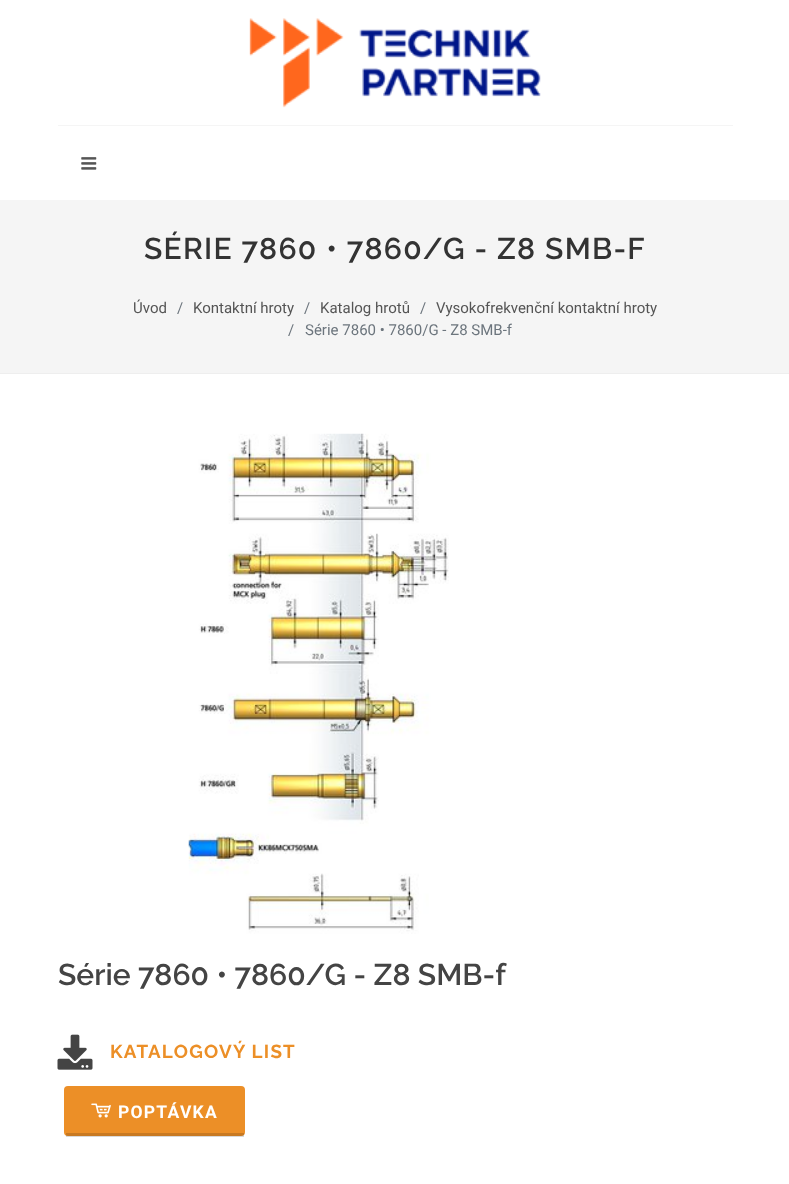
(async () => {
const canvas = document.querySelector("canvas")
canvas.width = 789
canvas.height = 1184
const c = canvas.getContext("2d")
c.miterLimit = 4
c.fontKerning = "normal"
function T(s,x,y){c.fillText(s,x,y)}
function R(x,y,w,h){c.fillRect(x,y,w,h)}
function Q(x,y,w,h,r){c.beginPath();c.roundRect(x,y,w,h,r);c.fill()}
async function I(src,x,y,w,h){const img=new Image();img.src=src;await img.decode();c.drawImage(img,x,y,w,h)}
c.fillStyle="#fff"
R(0,0,789,1184)
c.fillStyle="#f5f5f5"
R(0,200,789,173)
await I("1.png",249,18,292,90)
R(58,125,675,1)
await I("2.png",81,157,16,13)
c.fillStyle="#eee"
R(0,373,789,1)
c.letterSpacing="1.25px"
c.font="600 30px Raleway"
c.fillStyle="#333"
T("SÉRIE 7860 • 7860/G - Z8 SMB-F",144,259)
c.letterSpacing="0px"
c.font="15px Roboto"
c.fillStyle="#555"
T("Úvod",133,313)
c.fillStyle="#6c757d"
T("/",177,313)
c.fillStyle="#555"
T("Kontaktní hroty",193,313)
c.fillStyle="#6c757d"
T("/",304,313)
c.fillStyle="#555"
T("Katalog hrotů",320,313)
c.fillStyle="#6c757d"
T("/",420,313)
c.fillStyle="#555"
T("Vysokofrekvenční kontaktní hroty",436,313)
c.fillStyle="#6c757d"
T("/",288,335)
T("Série 7860 • 7860/G - Z8 SMB-f",305,335)
await I("3.png",188,433,261,501)
c.font="600 30px Raleway"
c.fillStyle="#444"
T("Série 7860 • 7860/G - Z8 SMB-f",58,985)
await I("4.png",57,1034,36,36)
c.letterSpacing="1.25px"
c.font="bold 18.75px Raleway"
c.fillStyle="#ec8f27"
T("KATALOGOVÝ LIST",110,1058)
Q(64,1086,181,50,4)
c.fillStyle="#00000026"
R(66,1133,178,4)
await I("5.png",91,1103,20,15)
c.font="bold 17.5px Roboto"
c.fillStyle="#fff"
T("POPTÁVKA",118,1118)
})()
